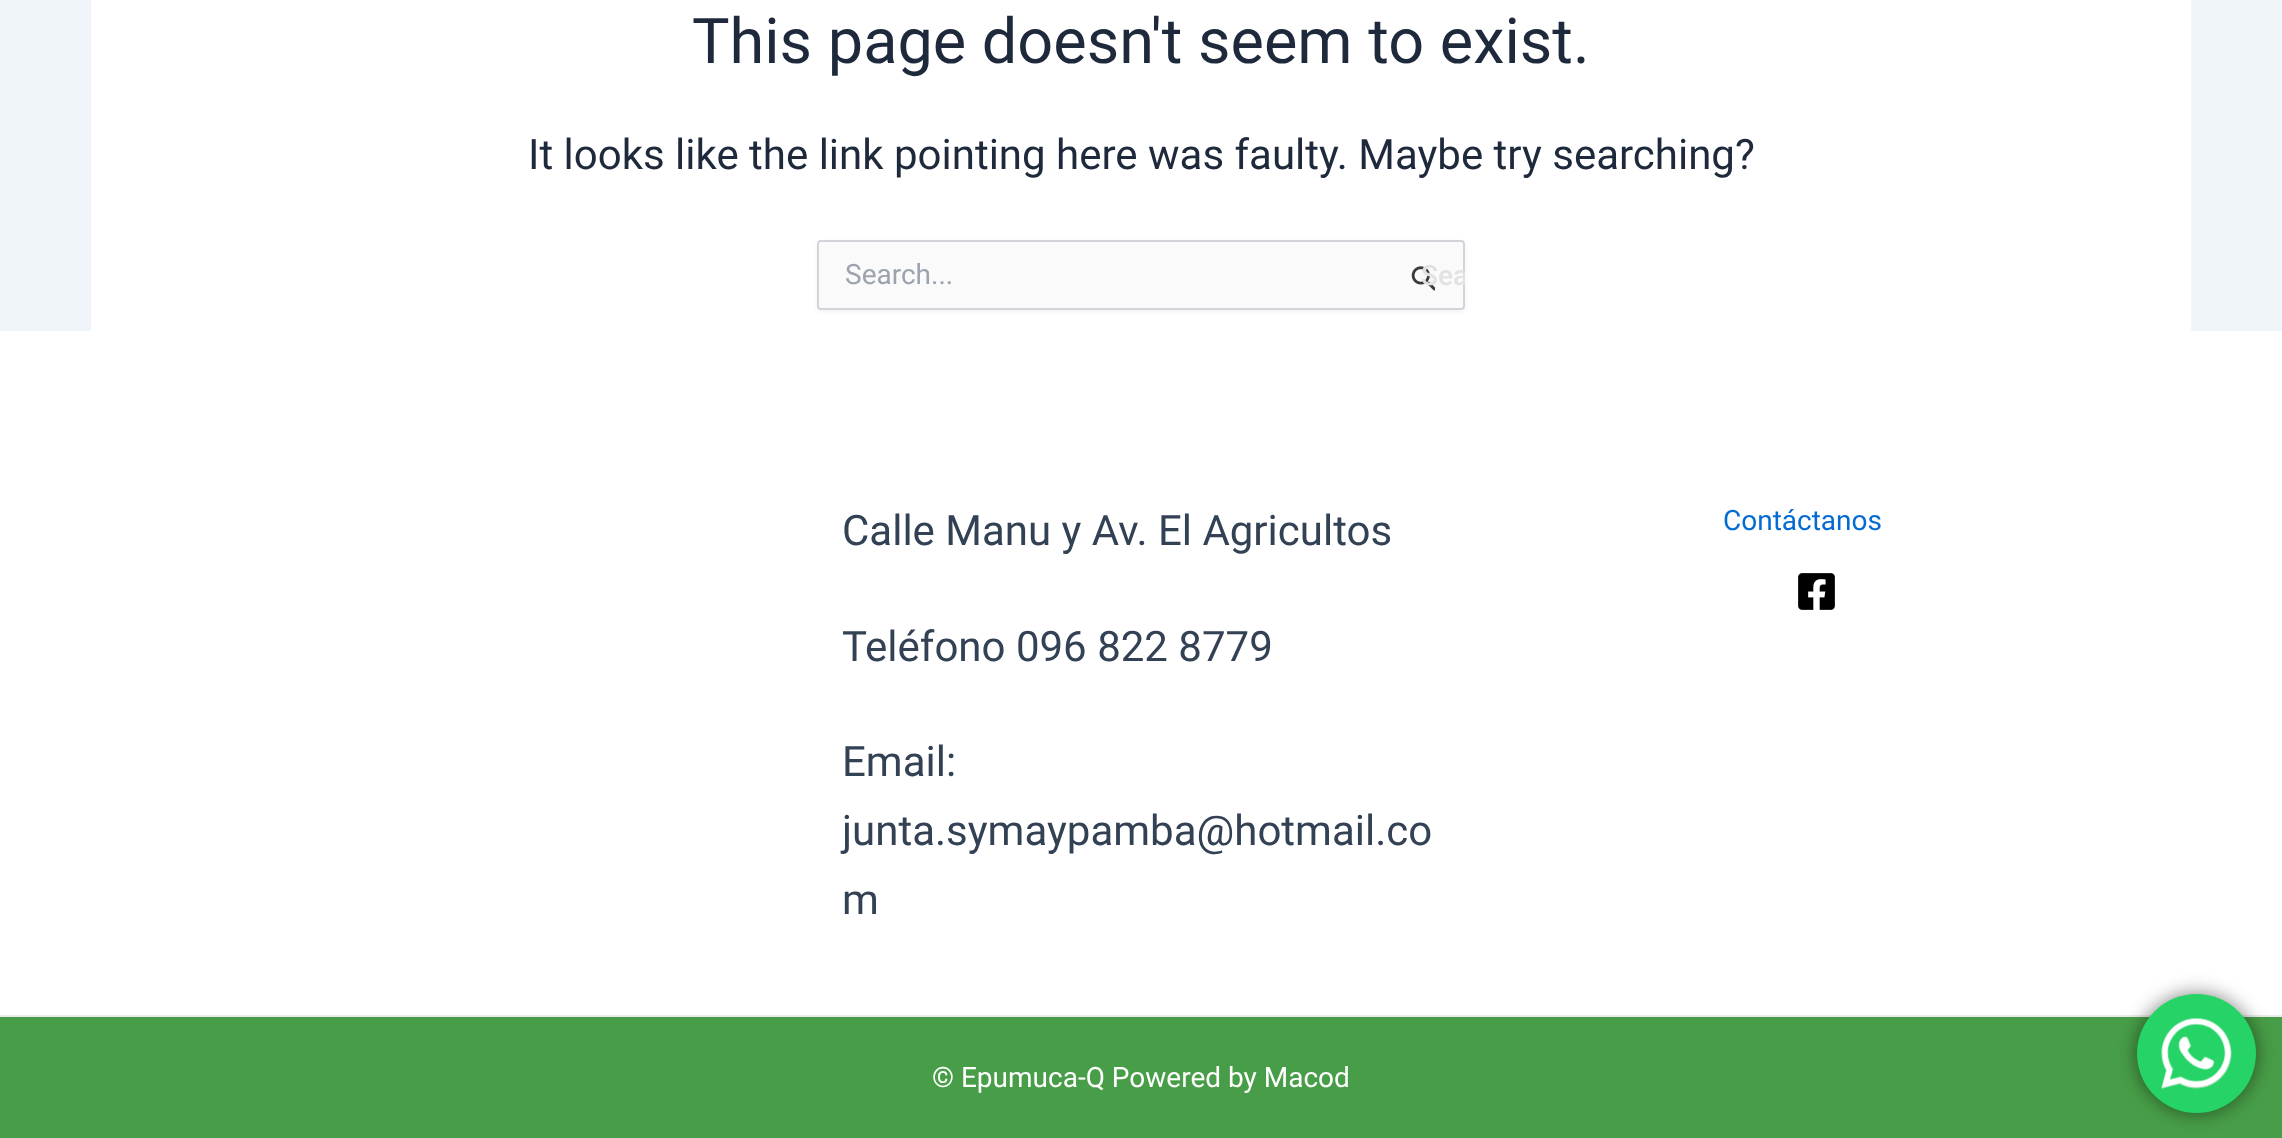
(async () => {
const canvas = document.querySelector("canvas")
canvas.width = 2282
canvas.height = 1138
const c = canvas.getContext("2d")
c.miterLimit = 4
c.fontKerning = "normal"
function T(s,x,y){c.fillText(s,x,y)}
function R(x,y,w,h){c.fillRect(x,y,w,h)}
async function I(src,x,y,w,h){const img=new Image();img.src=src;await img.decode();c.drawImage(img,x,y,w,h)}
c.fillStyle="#f0f5fa"
R(0,0,2282,1138)
c.fillStyle="#fff"
R(91,0,2100,331)
c.font="63px Roboto"
c.fillStyle="#1e293b"
T("This page doesn't seem to exist.",692,63)
c.font="42px Roboto"
T("It looks like the link pointing here was faulty. Maybe try searching?",528,169)
c.fillStyle="#0000000d"
c.filter="blur(2px)"
c.beginPath()
c.roundRect(817,242,648,70,4)
c.fill()
c.filter="none"
c.fillStyle="#fafafa"
c.beginPath()
c.roundRect(818,241,646,68,3)
c.fill()
c.strokeStyle="#d1d5db"
c.lineWidth=2
c.stroke()
c.font="28px Roboto"
c.fillStyle="#9ca3af"
T("Search...",845,284)
await I("1.png",1411,266,24,25)
c.save()
c.beginPath()
c.roundRect(1386,240,79,73,4)
c.clip()
c.font="500 28px Roboto"
c.fillStyle="#e2e2e3"
T("Sea",1421,285)
c.restore()
c.fillStyle="#fff"
R(0,331,2282,684)
c.font="42px Roboto"
c.fillStyle="#334155"
T("Calle Manu y Av. El Agricultos",842,545)
T("Teléfono 096 822 8779",842,661)
T("Email:",842,776)
T("junta.symaypamba@hotmail.co",842,845)
T("m",842,914)
c.font="28px Roboto"
c.fillStyle="#046bd2"
T("Contáctanos",1723,530)
await I("2.png",1798,573,37,37)
c.fillStyle="#489e48"
R(0,1017,2282,121)
c.fillStyle="#eaeaea"
R(0,1015,2282,2)
c.fillStyle="#fff"
T("© Epumuca-Q Powered by Macod",932,1087)
c.fillStyle="#00000080"
c.filter="blur(9.5px)"
c.beginPath()
c.roundRect(2137,994,119,119,59.5)
c.fill()
c.filter="none"
c.fillStyle="#25d366"
c.beginPath()
c.arc(2196.5,1053.5,59.5,0,7)
c.fill()
await I("3.png",2161,1018,71,71)
})()
